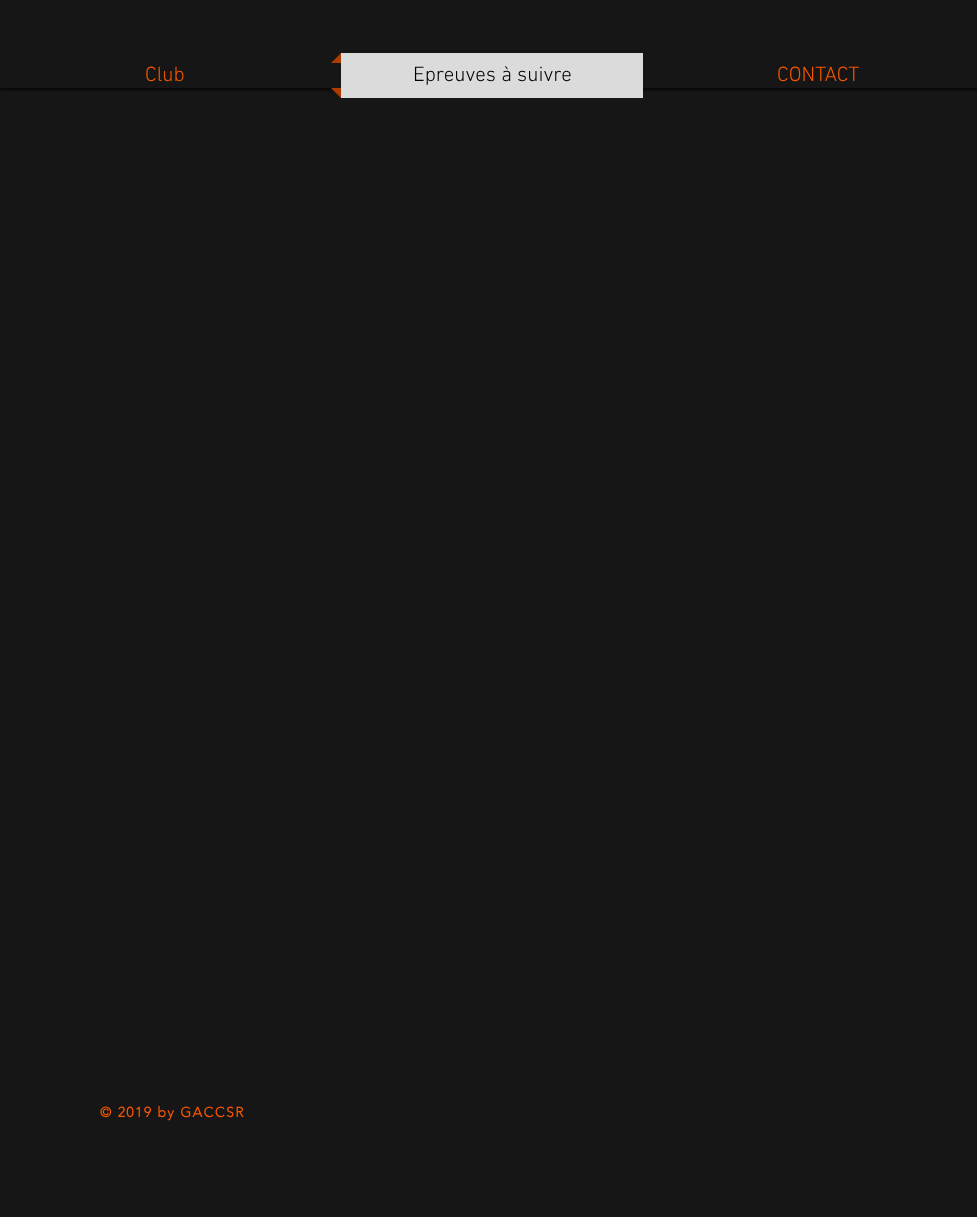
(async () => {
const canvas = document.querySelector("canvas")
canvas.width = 977
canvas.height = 1217
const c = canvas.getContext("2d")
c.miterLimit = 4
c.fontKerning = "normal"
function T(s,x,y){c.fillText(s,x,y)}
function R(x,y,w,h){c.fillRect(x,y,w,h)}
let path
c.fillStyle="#171616"
R(0,0,977,1217)
c.save()
path = new Path2D("M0 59h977v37h-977zm-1 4h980v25h-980z")
c.clip(path,"evenodd")
c.fillStyle="#000000b3"
c.filter="blur(1.5px)"
c.beginPath()
c.rect(-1,65,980,25)
c.fill()
c.filter="none"
c.restore()
c.font="300 21px 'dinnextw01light'"
c.fillStyle="#f55600"
T("Club",145,81)
c.fillStyle="#ac3c00"
path = new Path2D("M341 63h-10l10-10zm-10 25h10v10z")
c.fill(path)
c.fillStyle="#dbdbdb"
R(341,53,302,45)
c.fillStyle="#000"
T("Epreuves à suivre",413,81)
c.fillStyle="#f55600"
T("CONTACT",777,81)
c.letterSpacing="1.4px"
c.font="bold 14px 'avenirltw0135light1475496'"
T("© 2019 by GACCSR",100,1117)
})()
